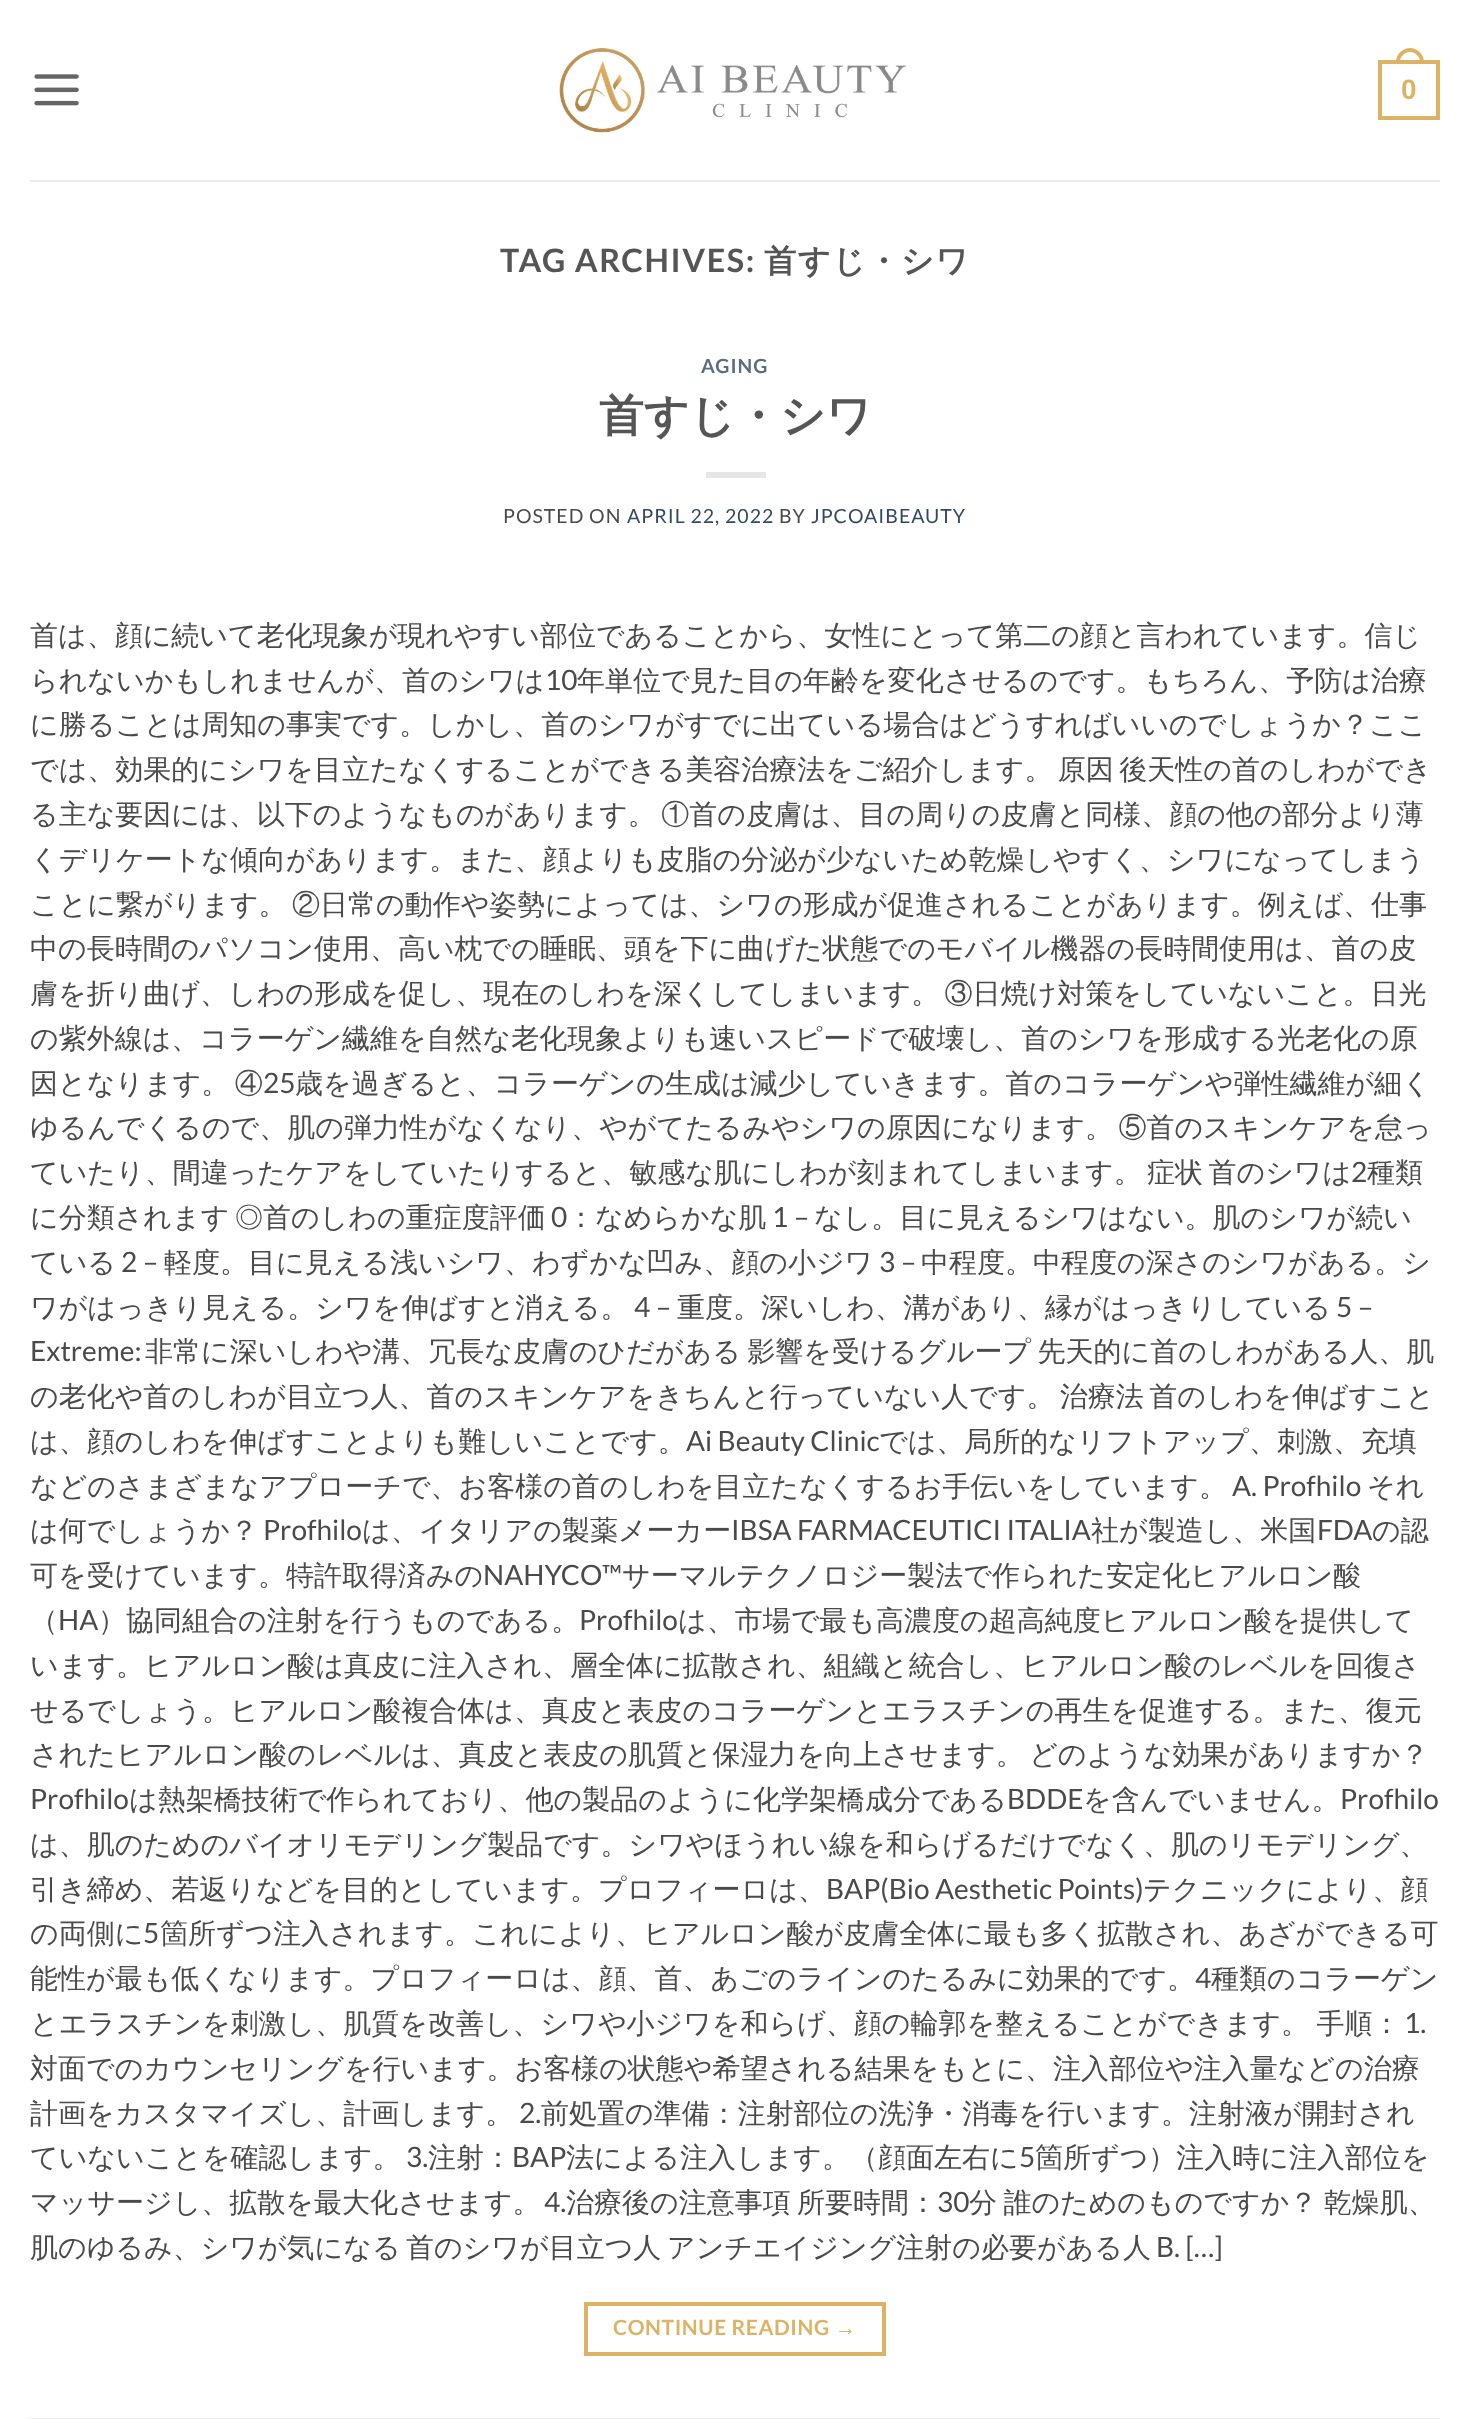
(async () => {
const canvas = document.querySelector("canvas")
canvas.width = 1470
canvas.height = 2419
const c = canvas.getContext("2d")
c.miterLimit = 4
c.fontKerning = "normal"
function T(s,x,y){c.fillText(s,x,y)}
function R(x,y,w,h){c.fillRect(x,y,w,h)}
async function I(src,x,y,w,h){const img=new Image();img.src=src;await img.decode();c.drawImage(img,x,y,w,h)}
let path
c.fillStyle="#fff"
R(0,0,1470,2419)
await I("1.png",34,74,45,32)
await I("2.png",559,48,347,85)
c.strokeStyle="#dcb365"
c.lineWidth=4
c.strokeRect(1380,62,58,56)
c.fillStyle="#dcb365"
path = new Path2D("M1410 48c7.5 0 14 6.5 14 14v2h-28v-2c0-7.5 6.5-14 14-14zm0 4c5.5 0 10 4.5 10 10v2h-20v-2c0-5.5 4.5-10 10-10z")
c.fill(path,"evenodd")
c.font="bold 28px Liberation Sans"
T("0",1401,99)
c.fillStyle="#ededed"
R(30,180,1410,2)
c.letterSpacing="1.6px"
c.font="bold 32.25px Lato"
c.fillStyle="#555"
T("TAG ARCHIVES:",500,272)
c.font="bold 32.25px WenQuanYi Zen Hei"
T("首すじ・シワ",764,272)
c.letterSpacing="1px"
c.font="bold 19.5px Lato"
c.fillStyle="#5c6d81"
T("AGING",701,373)
c.letterSpacing="0px"
c.font="bold 44.75px WenQuanYi Zen Hei"
c.fillStyle="#555"
T("首すじ・シワ",599,431)
c.fillStyle="#e6e6e6"
R(706,472,60,6)
c.letterSpacing="1px"
c.font="19.5px Lato"
c.fillStyle="#4a4a4a"
T("POSTED ON",503,523)
c.fillStyle="#334862"
T("APRIL 22, 2022",627,523)
c.fillStyle="#4a4a4a"
T("BY",779,523)
c.fillStyle="#334862"
T("JPCOAIBEAUTY",811,523)
c.letterSpacing="0px"
c.font="500 28px WenQuanYi Zen Hei"
c.fillStyle="#4a4a4a"
T("首は、顔に続いて老化現象が現れやすい部位であることから、女性にとって第二の顔と言われています。信じ",30,645)
T("られないかもしれませんが、首のシワは",30,690)
c.font="28px Lato"
T("10",545,690)
c.font="500 28px WenQuanYi Zen Hei"
T("年単位で見た目の年齢を変化させるのです。もちろん、予防は治療",577,690)
T("に勝ることは周知の事実です。しかし、首のシワがすでに出ている場合はどうすればいいのでしょうか？ここ",30,734)
c.wordSpacing="-3px"
T("では、効果的にシワを目立たなくすることができる美容治療法をご紹介します。 原因 後天性の首のしわができ",30,779)
T("る主な要因には、以下のようなものがあります。 ①首の皮膚は、目の周りの皮膚と同様、顔の他の部分より薄",30,824)
c.wordSpacing="0px"
T("くデリケートな傾向があります。また、顔よりも皮脂の分泌が少ないため乾燥しやすく、シワになってしまう",30,869)
c.wordSpacing="-3px"
T("ことに繋がります。 ②日常の動作や姿勢によっては、シワの形成が促進されることがあります。例えば、仕事",30,914)
c.wordSpacing="0px"
T("中の長時間のパソコン使用、高い枕での睡眠、頭を下に曲げた状態でのモバイル機器の長時間使用は、首の皮",30,958)
c.wordSpacing="-3px"
T("膚を折り曲げ、しわの形成を促し、現在のしわを深くしてしまいます。 ③日焼け対策をしていないこと。日光",30,1003)
c.wordSpacing="0px"
T("の紫外線は、コラーゲン繊維を自然な老化現象よりも速いスピードで破壊し、首のシワを形成する光老化の原",30,1048)
c.wordSpacing="-3px"
T("因となります。 ④",30,1093)
c.wordSpacing="0px"
c.font="28px Lato"
T("25",263,1093)
c.font="500 28px WenQuanYi Zen Hei"
T("歳を過ぎると、コラーゲンの生成は減少していきます。首のコラーゲンや弾性繊維が細く",295,1093)
c.wordSpacing="-3px"
T("ゆるんでくるので、肌の弾力性がなくなり、やがてたるみやシワの原因になります。 ⑤首のスキンケアを怠っ",30,1137)
T("ていたり、間違ったケアをしていたりすると、敏感な肌にしわが刻まれてしまいます。 症状 首のシワは",30,1182)
c.wordSpacing="0px"
c.font="28px Lato"
T("2",1351,1182)
c.font="500 28px WenQuanYi Zen Hei"
T("種類",1367,1182)
T("に分類されます",30,1227)
T("◎首のしわの重症度評価",235,1227)
c.font="28px Lato"
T("0",551,1227)
c.font="500 28px WenQuanYi Zen Hei"
T("：なめらかな肌",567,1227)
c.font="28px Lato"
T("1 –",772,1227)
c.font="500 28px WenQuanYi Zen Hei"
T("なし。目に見えるシワはない。肌のシワが続い",814,1227)
T("ている",30,1272)
c.font="28px Lato"
T("2 –",121,1272)
c.font="500 28px WenQuanYi Zen Hei"
T("軽度。目に見える浅いシワ、わずかな凹み、顔の小ジワ",164,1272)
c.font="28px Lato"
T("3 –",879,1272)
c.font="500 28px WenQuanYi Zen Hei"
T("中程度。中程度の深さのシワがある。シ",921,1272)
T("ワがはっきり見える。シワを伸ばすと消える。",30,1317)
c.font="28px Lato"
T("4 –",634,1317)
c.font="500 28px WenQuanYi Zen Hei"
T("重度。深いしわ、溝があり、縁がはっきりしている",677,1317)
c.font="28px Lato"
T("5 –",1336,1317)
T("Extreme:",30,1361)
c.wordSpacing="-2px"
c.font="500 28px WenQuanYi Zen Hei"
T("非常に深いしわや溝、冗長な皮膚のひだがある 影響を受けるグループ 先天的に首のしわがある人、肌",145,1361)
c.wordSpacing="-3px"
T("の老化や首のしわが目立つ人、首のスキンケアをきちんと行っていない人です。 治療法 首のしわを伸ばすこと",30,1406)
c.wordSpacing="0px"
T("は、顔のしわを伸ばすことよりも難しいことです。",30,1451)
c.font="28px Lato"
T("Ai Beauty Clinic",686,1451)
c.font="500 28px WenQuanYi Zen Hei"
T("では、局所的なリフトアップ、刺激、充填",879,1451)
T("などのさまざまなアプローチで、お客様の首のしわを目立たなくするお手伝いをしています。",30,1496)
c.font="28px Lato"
T("A. Profhilo",1232,1496)
c.font="500 28px WenQuanYi Zen Hei"
T("それ",1367,1496)
T("は何でしょうか？",30,1540)
c.font="28px Lato"
T("Profhilo",263,1540)
c.font="500 28px WenQuanYi Zen Hei"
T("は、イタリアの製薬メーカー",362,1540)
c.font="28px Lato"
T("IBSA FARMACEUTICI ITALIA",731,1540)
c.font="500 28px WenQuanYi Zen Hei"
T("社が製造し、米国",1091,1540)
c.font="28px Lato"
T("FDA",1317,1540)
c.font="500 28px WenQuanYi Zen Hei"
T("の認",1372,1540)
T("可を受けています。特許取得済みの",30,1585)
c.font="28px Lato"
T("NAHYCO™",483,1585)
c.font="500 28px WenQuanYi Zen Hei"
T("サーマルテクノロジー製法で作られた安定化ヒアルロン酸",622,1585)
T("（",30,1630)
c.font="28px Lato"
T("HA",58,1630)
c.font="500 28px WenQuanYi Zen Hei"
T("）協同組合の注射を行うものである。",98,1630)
c.font="28px Lato"
T("Profhilo",579,1630)
c.font="500 28px WenQuanYi Zen Hei"
T("は、市場で最も高濃度の超高純度ヒアルロン酸を提供して",678,1630)
T("います。ヒアルロン酸は真皮に注入され、層全体に拡散され、組織と統合し、ヒアルロン酸のレベルを回復さ",30,1675)
T("せるでしょう。ヒアルロン酸複合体は、真皮と表皮のコラーゲンとエラスチンの再生を促進する。また、復元",30,1720)
c.wordSpacing="-3px"
T("されたヒアルロン酸のレベルは、真皮と表皮の肌質と保湿力を向上させます。 どのような効果がありますか？",30,1764)
c.wordSpacing="0px"
c.font="28px Lato"
T("Profhilo",30,1809)
c.font="500 28px WenQuanYi Zen Hei"
T("は熱架橋技術で作られており、他の製品のように化学架橋成分である",129,1809)
c.font="28px Lato"
T("BDDE",1007,1809)
c.font="500 28px WenQuanYi Zen Hei"
T("を含んでいません。",1083,1809)
c.font="28px Lato"
T("Profhilo",1340,1809)
c.font="500 28px WenQuanYi Zen Hei"
T("は、肌のためのバイオリモデリング製品です。シワやほうれい線を和らげるだけでなく、肌のリモデリング、",30,1854)
T("引き締め、若返りなどを目的としています。プロフィーロは、",30,1899)
c.font="28px Lato"
T("BAP(Bio Aesthetic Points)",826,1899)
c.font="500 28px WenQuanYi Zen Hei"
T("テクニックにより、顔",1143,1899)
T("の両側に",30,1943)
c.font="28px Lato"
T("5",143,1943)
c.font="500 28px WenQuanYi Zen Hei"
T("箇所ずつ注入されます。これにより、ヒアルロン酸が皮膚全体に最も多く拡散され、あざができる可",160,1943)
T("能性が最も低くなります。プロフィーロは、顔、首、あごのラインのたるみに効果的です。",30,1988)
c.font="28px Lato"
T("4",1195,1988)
c.font="500 28px WenQuanYi Zen Hei"
T("種類のコラーゲン",1211,1988)
c.wordSpacing="-1px"
T("とエラスチンを刺激し、肌質を改善し、シワや小ジワを和らげ、顔の輪郭を整えることができます。 手順：",30,2033)
c.wordSpacing="0px"
c.font="28px Lato"
T("1.",1404,2033)
c.font="500 28px WenQuanYi Zen Hei"
T("対面でのカウンセリングを行います。お客様の状態や希望される結果をもとに、注入部位や注入量などの治療",30,2078)
T("計画をカスタマイズし、計画します。",30,2123)
c.font="28px Lato"
T("2.",519,2123)
c.font="500 28px WenQuanYi Zen Hei"
T("前処置の準備：注射部位の洗浄・消毒を行います。注射液が開封され",541,2123)
T("ていないことを確認します。",30,2167)
c.font="28px Lato"
T("3.",406,2167)
c.font="500 28px WenQuanYi Zen Hei"
T("注射：",428,2167)
c.font="28px Lato"
T("BAP",512,2167)
c.font="500 28px WenQuanYi Zen Hei"
T("法による注入します。（顔面左右に",566,2167)
c.font="28px Lato"
T("5",1019,2167)
c.font="500 28px WenQuanYi Zen Hei"
T("箇所ずつ）注入時に注入部位を",1035,2167)
T("マッサージし、拡散を最大化させます。",30,2212)
c.font="28px Lato"
T("4.",544,2212)
c.wordSpacing="-2px"
c.font="500 28px WenQuanYi Zen Hei"
T("治療後の注意事項 所要時間：",566,2212)
c.wordSpacing="0px"
c.font="28px Lato"
T("30",937,2212)
c.wordSpacing="-2px"
c.font="500 28px WenQuanYi Zen Hei"
T("分 誰のためのものですか？ 乾燥肌、",969,2212)
c.wordSpacing="0px"
T("肌のゆるみ、シワが気になる",30,2257)
T("首のシワが目立つ人",406,2257)
T("アンチエイジング注射の必要がある人",667,2257)
c.font="28px Lato"
T("B. […]",1156,2257)
c.strokeRect(586,2304,298,50)
c.letterSpacing="0.6px"
c.font="bold 21px Lato"
c.fillStyle="#dcb365"
T("CONTINUE READING",613,2335)
c.font="bold 21px Liberation Sans"
T("→",835,2335)
c.fillStyle="#ececec"
R(30,2418,1410,1)
})()
